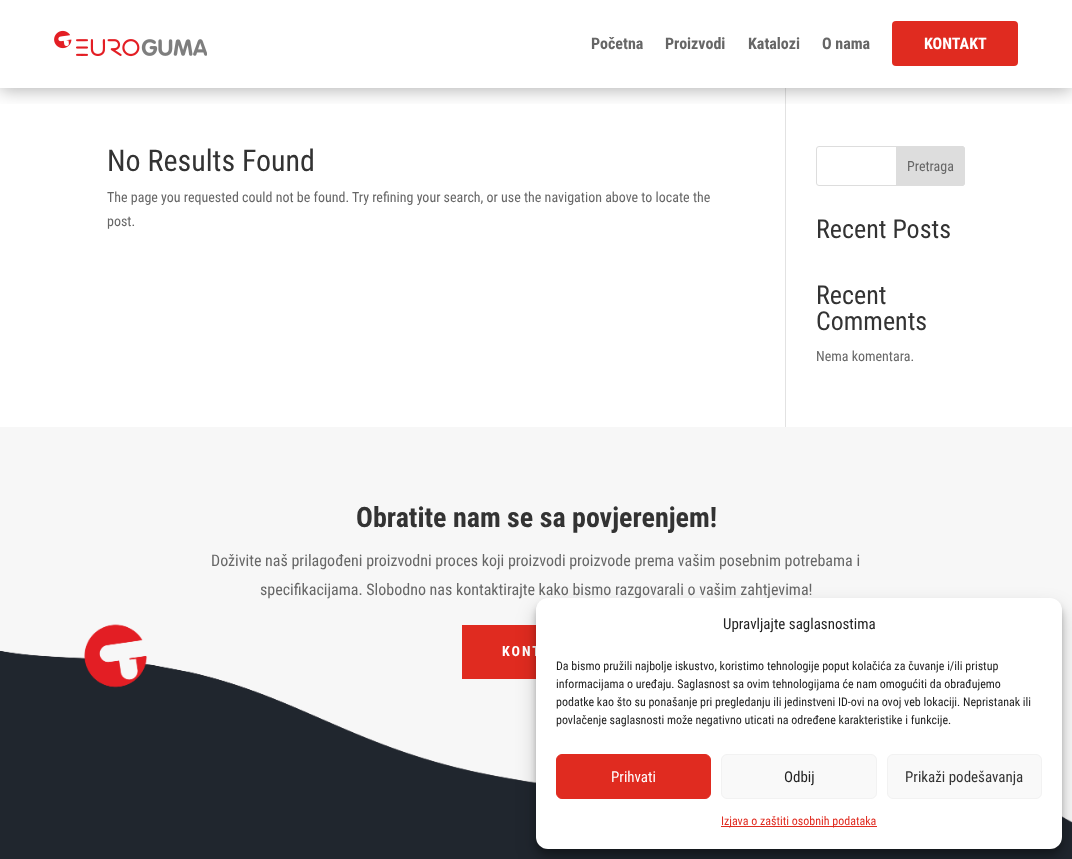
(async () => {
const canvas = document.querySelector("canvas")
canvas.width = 1072
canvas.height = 859
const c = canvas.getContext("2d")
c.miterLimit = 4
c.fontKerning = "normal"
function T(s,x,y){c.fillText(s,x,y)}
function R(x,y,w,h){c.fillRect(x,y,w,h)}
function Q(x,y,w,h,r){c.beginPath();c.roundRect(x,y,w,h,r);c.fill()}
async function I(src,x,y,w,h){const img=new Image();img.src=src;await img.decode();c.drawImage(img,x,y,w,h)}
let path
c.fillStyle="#fff"
R(0,0,1072,859)
c.fillStyle="#e2e2e2"
R(785,88,1,339)
c.save()
c.beginPath()
c.rect(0,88,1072,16)
c.clip()
c.fillStyle="#0000004d"
c.filter="blur(9px)"
c.beginPath()
c.rect(0,2,1072,88)
c.fill()
c.filter="none"
c.restore()
await I("1.png",54,30,153,27)
c.font="bold 16px Roboto Condensed"
c.fillStyle="#666"
T("Početna",591,49)
T("Proizvodi",665,49)
T("Katalozi",748,49)
T("O nama",822,49)
c.fillStyle="#e02b20"
Q(892,21,126,45,4)
c.fillStyle="#fff"
T("KONTAKT",924,49)
c.font="30px Roboto Condensed"
c.fillStyle="#333"
T("No Results Found",107,171)
c.font="14px Roboto Condensed"
c.fillStyle="#666"
T("The page you requested could not be found. Try refining your search, or use the navigation above to locate the",107,202)
T("post.",107,226)
c.beginPath()
c.roundRect(816.5,146.5,148,39,2.5)
c.strokeStyle="#ddd"
c.stroke()
c.fillStyle="#ddd"
c.beginPath()
c.roundRect(896.5,146.5,68,39,[0,2.5,2.5,0])
c.fill()
c.stroke()
c.fillStyle="#666"
T("Pretraga",907,171)
c.font="26px Roboto Condensed"
c.fillStyle="#333"
T("Recent Posts",816,238)
T("Recent",816,304)
T("Comments",816,330)
c.font="14px Roboto Condensed"
c.fillStyle="#666"
T("Nema komentara.",816,361)
c.fillStyle="#f7f7f7"
R(0,427,1072,396)
await I("2.png",0,624,1072,235)
c.font="bold 28px Roboto Condensed"
c.fillStyle="#333"
T("Obratite nam se sa povjerenjem!",356,527)
c.font="16px Roboto Condensed"
c.fillStyle="#666"
T("Doživite naš prilagođeni proizvodni proces koji proizvodi proizvode prema vašim posebnim potrebama i",211,566)
T("specifikacijama. Slobodno nas kontaktirajte kako bismo razgovarali o vašim zahtjevima!",260,595)
c.fillStyle="#e02b20"
R(472,635,64,34)
path = new Path2D("M467 630h138v44h-138z")
c.strokeStyle="#e02b20"
c.lineWidth=10
c.stroke(path)
c.letterSpacing="2px"
c.font="bold 14px Roboto Condensed"
c.fillStyle="#fff"
T("KONT",502,656)
c.fillStyle="#0000003b"
c.filter="blur(3px)"
c.beginPath()
c.roundRect(536,604,526,251,12)
c.fill()
c.filter="none"
c.fillStyle="#00000030"
c.filter="blur(10px)"
c.beginPath()
c.roundRect(536,608,526,251,12)
c.fill()
c.filter="none"
c.fillStyle="#fff"
Q(536,598,526,251,12)
c.letterSpacing="0px"
c.font="15px Roboto Condensed"
c.fillStyle="#222"
T("Upravljajte saglasnostima",723,629)
c.font="12px Roboto Condensed"
T("Da bismo pružili najbolje iskustvo, koristimo tehnologije poput kolačića za čuvanje i/ili pristup",556,670)
T("informacijama o uređaju. Saglasnost sa ovim tehnologijama će nam omogućiti da obrađujemo",556,688)
T("podatke kao što su ponašanje pri pregledanju ili jedinstveni ID-ovi na ovoj veb lokaciji. Nepristanak ili",556,706)
T("povlačenje saglasnosti može negativno uticati na određene karakteristike i funkcije.",556,724)
c.fillStyle="#e02b20"
c.beginPath()
c.roundRect(556.5,754.5,154,44,5.5)
c.fill()
c.lineWidth=1
c.stroke()
c.font="15px Roboto Condensed"
c.fillStyle="#fff"
T("Prihvati",611,782)
c.fillStyle="#f9f9f9"
c.beginPath()
c.roundRect(721.5,754.5,155,44,5.5)
c.fill()
c.strokeStyle="#f2f2f2"
c.stroke()
c.fillStyle="#222"
T("Odbij",784,782)
c.fillStyle="#f9f9f9"
c.beginPath()
c.roundRect(887.5,754.5,154,44,5.5)
c.fill()
c.stroke()
c.fillStyle="#333"
T("Prikaži podešavanja",905,782)
c.fillStyle="#e02b20"
R(721,826,156,1)
c.font="12px Roboto Condensed"
T("Izjava o zaštiti osobnih podataka",721,825)
})()
